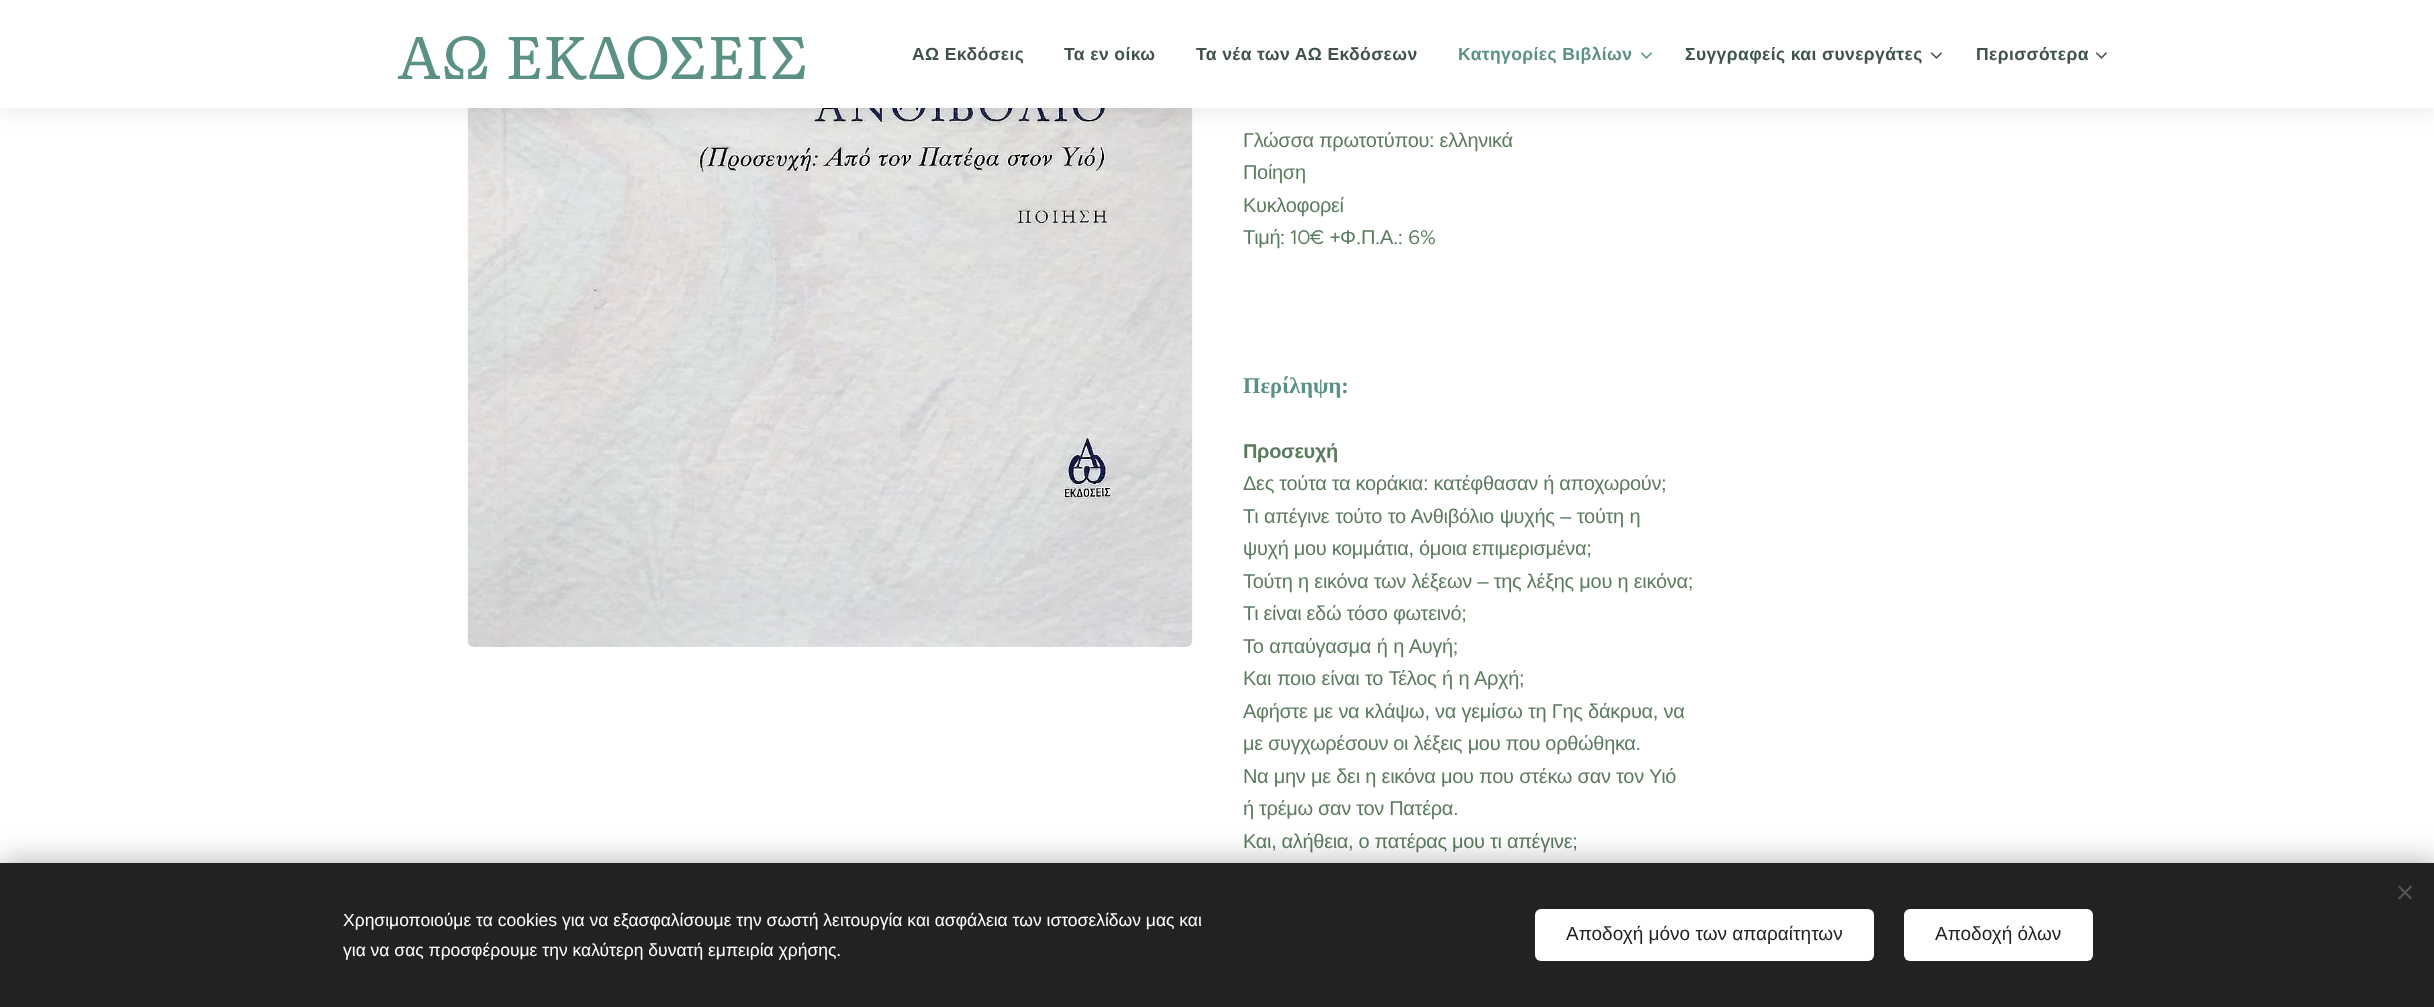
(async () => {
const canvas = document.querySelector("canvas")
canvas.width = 2434
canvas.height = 1007
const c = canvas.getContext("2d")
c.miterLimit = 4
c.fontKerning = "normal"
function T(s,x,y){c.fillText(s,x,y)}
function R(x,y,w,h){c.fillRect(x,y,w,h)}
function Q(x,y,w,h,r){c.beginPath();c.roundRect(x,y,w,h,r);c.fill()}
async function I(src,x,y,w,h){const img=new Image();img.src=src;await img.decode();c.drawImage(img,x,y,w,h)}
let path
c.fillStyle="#fff"
R(0,0,2434,1007)
await I("3.png",467,108,726,539)
c.fillStyle="#00000012"
c.filter="blur(9.5px)"
c.beginPath()
c.rect(0,6,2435,108)
c.fill()
c.filter="none"
c.fillStyle="#fff"
R(0,0,2434,108)
c.letterSpacing="-0.32px"
c.font="60px Literata"
c.fillStyle="#5b9085"
T("ΑΩ ΕΚΔΟΣΕΙΣ",397,79)
c.letterSpacing="0.4px"
c.font="bold 17.5px Liberation Sans"
c.fillStyle="#3f524c"
T("ΑΩ Εκδόσεις",912,60)
T("Τα εν οίκω",1064,60)
T("Τα νέα των ΑΩ Εκδόσεων",1196,60)
c.fillStyle="#5b9085"
T("Κατηγορίες Βιβλίων",1458,60)
await I("1.png",1640,52,12,7)
c.fillStyle="#3f524c"
T("Συγγραφείς και συνεργάτες",1685,60)
await I("2.png",1930,52,12,7)
T("Περισσότερα",1976,60)
await I("2.png",2095,52,12,7)
c.letterSpacing="-0.32px"
c.font="20px Liberation Sans"
c.fillStyle="#5a7b5e"
T("Γλώσσα πρωτοτύπου: ελληνικά",1243,147)
T("Ποίηση",1243,179)
T("Κυκλοφορεί",1243,212)
T("Τιμή",1243,244)
c.font="20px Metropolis"
T(": 10€ +",1280,244)
c.font="20px Liberation Sans"
T("Φ",1340,244)
c.font="20px Metropolis"
T(".",1356,244)
c.font="20px Liberation Sans"
T("Π",1361,244)
c.font="20px Metropolis"
T(".",1375,244)
c.font="20px Liberation Sans"
T("Α",1380,244)
c.font="20px Metropolis"
T(".: 6%",1393,244)
c.letterSpacing="0px"
c.font="bold 22.5px Liberation Serif"
c.fillStyle="#5b9085"
T("Περίληψη:",1243,393)
c.letterSpacing="-0.32px"
c.font="bold 20px Liberation Sans"
c.fillStyle="#5a7b5e"
T("Προσευχή",1243,458)
c.font="20px Liberation Sans"
T("Δες τούτα τα κοράκια: κατέφθασαν ή αποχωρούν;",1243,490)
c.wordSpacing="0.5px"
T("Τι απέγινε τούτο το Ανθιβόλιο ψυχής – τούτη η",1243,523)
c.wordSpacing="0px"
T("ψυχή μου κομμάτια, όμοια επιμερισμένα;",1243,555)
c.wordSpacing="0.25px"
T("Τούτη η εικόνα των λέξεων – της λέξης μου η εικόνα;",1243,588)
c.wordSpacing="0px"
T("Τι είναι εδώ τόσο φωτεινό;",1243,620)
c.wordSpacing="0.5px"
T("Το απαύγασμα ή η Αυγή;",1243,653)
T("Και ποιο είναι το Τέλος ή η Αρχή;",1243,685)
c.wordSpacing="0.25px"
T("Αφήστε με να κλάψω, να γεμίσω τη Γης δάκρυα, να",1243,718)
c.wordSpacing="0px"
T("με συγχωρέσουν οι λέξεις μου που ορθώθηκα.",1243,750)
c.wordSpacing="0.25px"
T("Να μην με δει η εικόνα μου που στέκω σαν τον Υιό",1243,783)
c.wordSpacing="0px"
T("ή τρέμω σαν τον Πατέρα.",1243,815)
T("Και, αλήθεια, ο πατέρας μου τι απέγινε;",1243,848)
c.fillStyle="#00000054"
c.filter="blur(15.5px)"
c.beginPath()
c.rect(0,863,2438,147)
c.fill()
c.filter="none"
c.fillStyle="#222"
R(0,863,2434,144)
c.fillStyle="#555"
path = new Path2D("M2398 898l12.5-12.5l1.5 1.5l-12.5 12.5z")
c.fill(path)
path = new Path2D("M2399.5 885.5l12.5 12.5l-1.5 1.5l-12.5-12.5z")
c.fill(path)
c.letterSpacing="0px"
c.font="17.5px Liberation Sans"
c.fillStyle="#fff"
T("Χρησιμοποιούμε τα cookies για να εξασφαλίσουμε την σωστή λειτουργία και ασφάλεια των ιστοσελίδων μας και",343,926)
T("για να σας προσφέρουμε την καλύτερη δυνατή εμπειρία χρήσης.",343,956)
Q(1535,909,339,52,6)
c.font="19px Liberation Sans"
c.fillStyle="#222"
T("Αποδοχή μόνο των απαραίτητων",1566,940)
c.fillStyle="#fff"
Q(1904,909,189,52,6)
c.fillStyle="#222"
T("Αποδοχή όλων",1935,940)
})()
